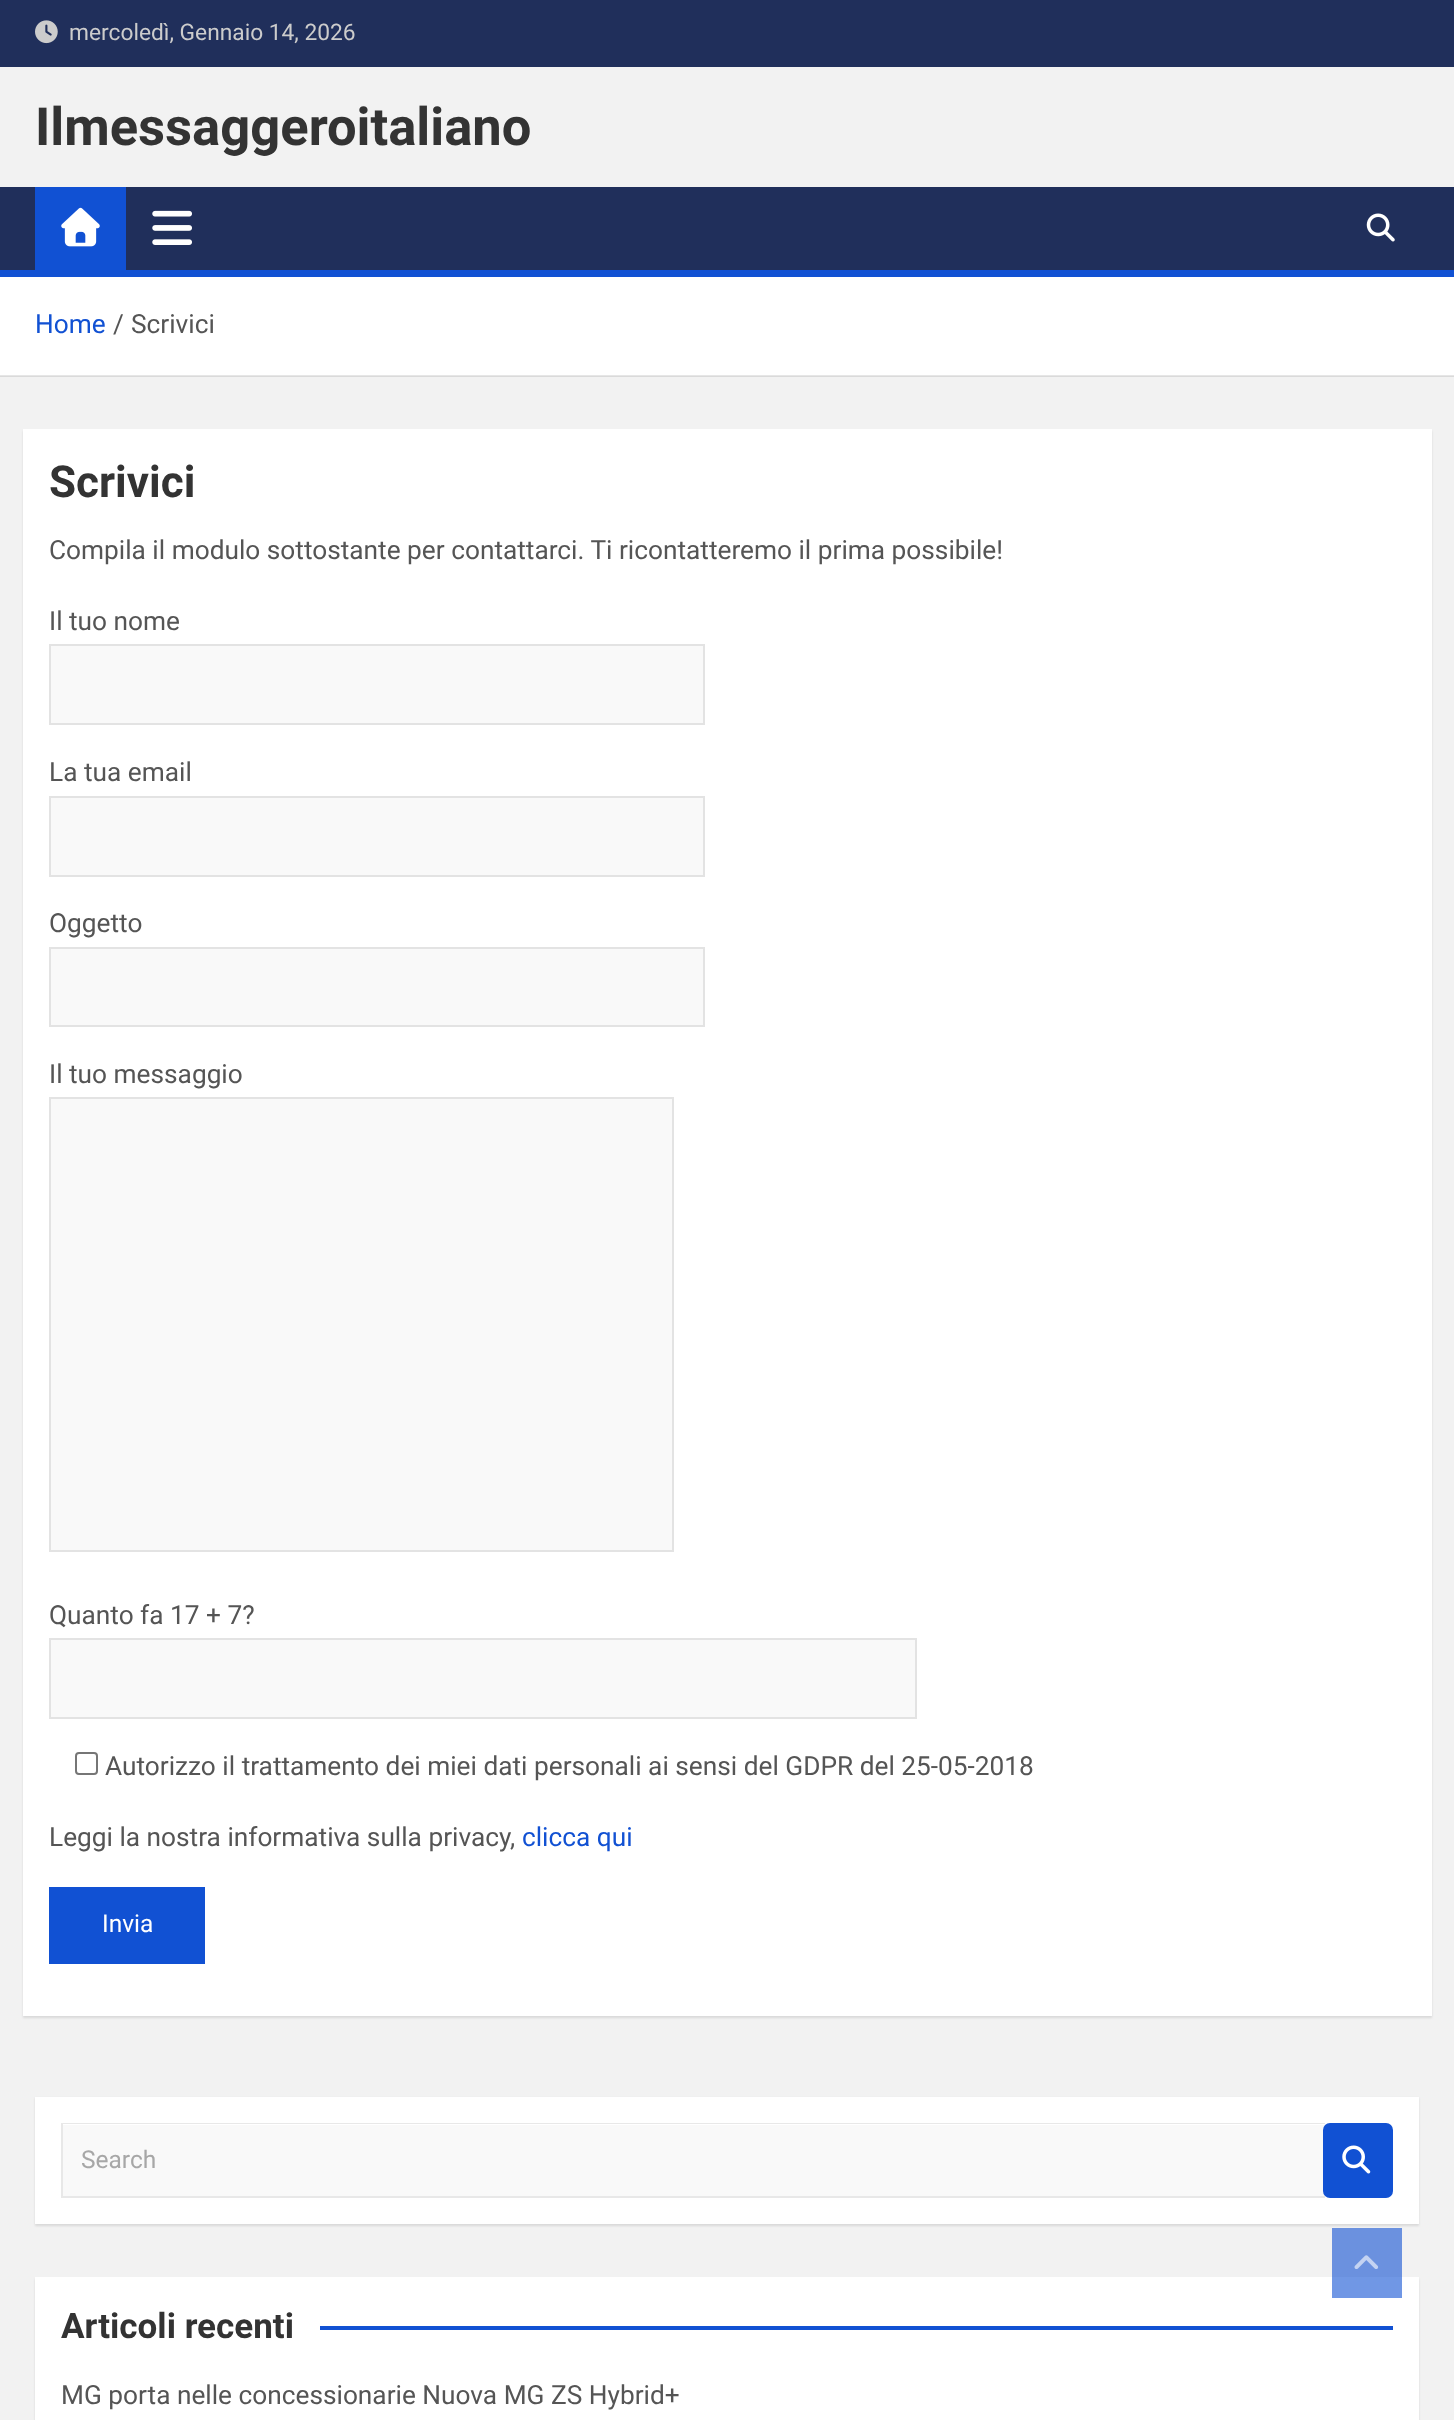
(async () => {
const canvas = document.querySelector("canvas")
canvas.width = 1454
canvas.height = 2420
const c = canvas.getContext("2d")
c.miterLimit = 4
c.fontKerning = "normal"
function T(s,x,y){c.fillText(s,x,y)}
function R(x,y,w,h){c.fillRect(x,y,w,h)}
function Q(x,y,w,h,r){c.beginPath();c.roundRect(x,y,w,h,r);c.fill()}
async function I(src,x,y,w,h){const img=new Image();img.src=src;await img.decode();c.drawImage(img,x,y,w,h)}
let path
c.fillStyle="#f2f2f2"
R(0,0,1454,2420)
c.fillStyle="#6b91df"
R(1332,2228,70,49)
c.fillStyle="#dadada"
R(0,376,1454,1)
c.fillStyle="#202f5b"
R(0,0,1454,67)
await I("1.png",35,20,23,24)
c.font="22.75px Roboto"
c.fillStyle="#ccc"
T("mercoledì, Gennaio 14, 2026",69,40)
c.font="bold 52.5px Roboto"
c.fillStyle="#333"
T("Ilmessaggeroitaliano",35,145)
c.fillStyle="#202f5b"
R(0,187,1454,83)
c.fillStyle="#1151d3"
R(35,187,91,83)
await I("2.png",61,207,39,40)
await I("3.png",152,210,40,35)
await I("4.png",1366,213,29,29)
R(0,270,1454,7)
c.fillStyle="#fff"
R(0,277,1454,98)
c.fillStyle="#e6e6e6"
R(0,375,1454,1)
c.font="26.25px Roboto"
c.fillStyle="#1151d3"
T("Home",35,333)
c.fillStyle="#555"
T("/",113,333)
T("Scrivici",131,333)
c.fillStyle="#0000001a"
c.filter="blur(1px)"
c.beginPath()
c.rect(23,431,1409,1587)
c.fill()
c.filter="none"
c.fillStyle="#fff"
R(23,429,1409,1587)
c.font="bold 44px Roboto"
c.fillStyle="#333"
T("Scrivici",49,497)
c.font="26.25px Roboto"
c.fillStyle="#555"
T("Compila il modulo sottostante per contattarci. Ti ricontatteremo il prima possibile!",49,559)
T("Il tuo nome",49,630)
c.fillStyle="#f9f9f9"
c.beginPath()
c.rect(50,645,654,79)
c.fill()
c.strokeStyle="#e3e3e3"
c.lineWidth=2
c.stroke()
c.fillStyle="#555"
T("La tua email",49,781)
c.fillStyle="#f9f9f9"
c.beginPath()
c.rect(50,797,654,79)
c.fill()
c.stroke()
c.fillStyle="#555"
T("Oggetto",49,932)
c.fillStyle="#f9f9f9"
c.beginPath()
c.rect(50,948,654,78)
c.fill()
c.stroke()
c.fillStyle="#555"
T("Il tuo messaggio",49,1083)
c.fillStyle="#f9f9f9"
c.beginPath()
c.rect(50,1098,623,453)
c.fill()
c.stroke()
c.fillStyle="#555"
T("Quanto fa 17 + 7?",49,1624)
c.fillStyle="#f9f9f9"
c.beginPath()
c.rect(50,1639,866,79)
c.fill()
c.stroke()
c.beginPath()
c.roundRect(76,1753,21,21,3)
c.strokeStyle="#767676"
c.stroke()
c.fillStyle="#555"
T("Autorizzo il trattamento dei miei dati personali ai sensi del GDPR del 25-05-2018",105,1775)
T("Leggi la nostra informativa sulla privacy,",49,1846)
c.fillStyle="#1151d3"
T("clicca qui",522,1846)
R(49,1887,156,77)
c.font="24.5px Roboto"
c.fillStyle="#fff"
T("Invia",102,1932)
c.fillStyle="#0000001a"
c.filter="blur(1px)"
c.beginPath()
c.rect(35,2098,1384,128)
c.fill()
c.filter="none"
c.fillStyle="#fff"
R(35,2097,1384,127)
c.fillStyle="#f9f9f9"
R(63,2125,1262,71)
c.fillStyle="#e8e8e8"
path = new Path2D("M61 2123h1264v1h-1262z")
c.fill(path)
path = new Path2D("M1325 2198h-1264l2-2h1262z")
c.fill(path)
c.fillStyle="#00000017"
path = new Path2D("M61 2198v-75l2 1v72z")
c.fill(path)
c.fillStyle="#a7a7a7"
T("Search",81,2168)
c.fillStyle="#1151d3"
Q(1323,2123,70,75,7)
await I("5.png",1342,2145,29,29)
c.fillStyle="#0000001a"
c.filter="blur(1px)"
c.beginPath()
c.rect(35,2279,1384,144)
c.fill()
c.filter="none"
c.fillStyle="#fff"
R(35,2277,1384,143)
c.fillStyle="#7097e5"
R(1332,2277,70,21)
c.font="bold 35px Roboto"
c.fillStyle="#333"
T("Articoli recenti",61,2338)
c.fillStyle="#1151d3"
R(320,2326,1073,4)
c.font="26.25px Roboto"
c.fillStyle="#555"
T("MG porta nelle concessionarie Nuova MG ZS Hybrid+",61,2404)
await I("6.png",1354,2255,25,14)
})()
